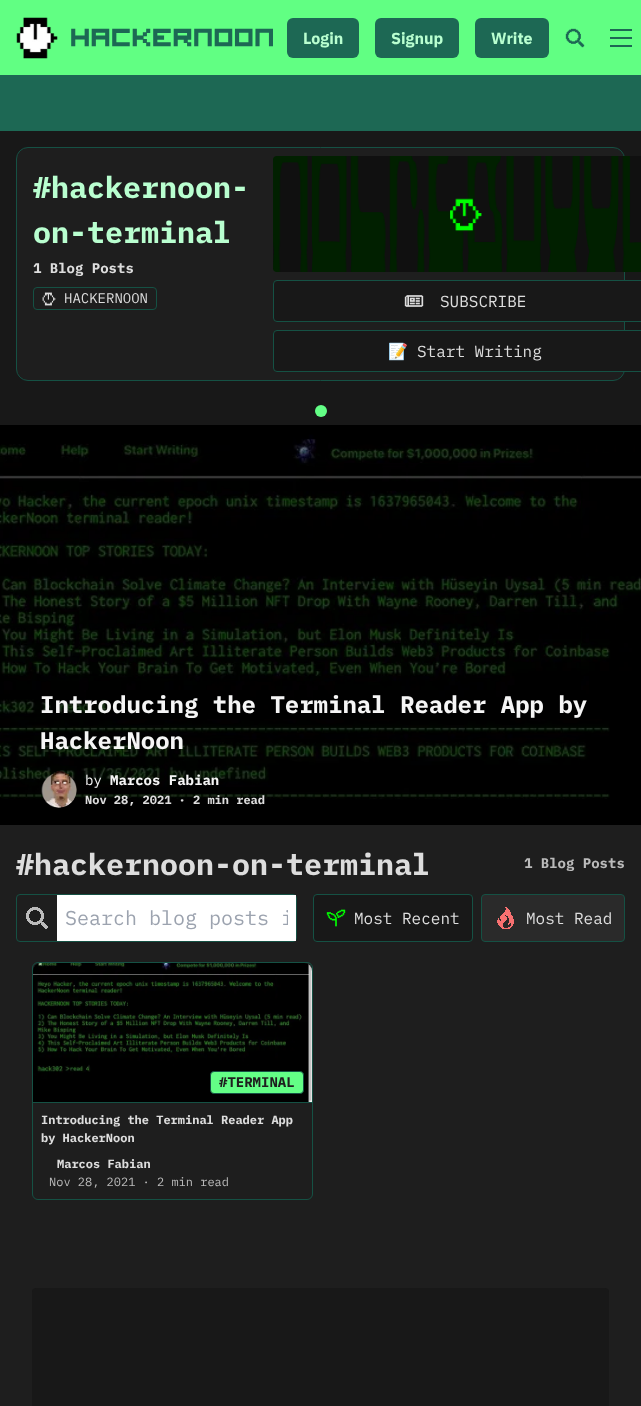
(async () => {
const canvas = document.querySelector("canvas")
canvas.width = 641
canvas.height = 1406
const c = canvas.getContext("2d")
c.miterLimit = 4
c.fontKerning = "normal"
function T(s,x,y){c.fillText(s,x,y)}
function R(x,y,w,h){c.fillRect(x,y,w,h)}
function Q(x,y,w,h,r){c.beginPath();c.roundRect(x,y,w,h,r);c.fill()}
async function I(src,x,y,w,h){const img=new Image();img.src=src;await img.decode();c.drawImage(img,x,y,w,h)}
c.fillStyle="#1e1e1e"
R(0,0,641,1406)
c.fillStyle="#61ff83"
R(0,0,641,75)
await I("1.png",16,17,42,42)
c.letterSpacing="1.25px"
c.font="bold 24px 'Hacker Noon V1'"
c.fillStyle="#1d6854"
T("Hackernoon",70,44)
Q(287,18,72,40,6)
c.letterSpacing="0px"
c.font="bold 16px IBM Plex Sans"
c.fillStyle="#b9ffd0"
T("Login",303,44)
c.fillStyle="#1d6854"
Q(375,18,84,40,6)
c.fillStyle="#b9ffd0"
T("Signup",391,44)
c.fillStyle="#1d6854"
Q(475,18,74,40,6)
c.fillStyle="#b9ffd0"
T("Write",491,44)
await I("2.png",565,28,20,20)
await I("3.png",610,29,22,18)
c.fillStyle="#1d6854"
R(0,75,641,56)
c.fillStyle="#181818"
R(0,131,641,294)
c.fillStyle="#1e1e1e"
c.beginPath()
c.roundRect(16.5,147.5,608,233,11.5)
c.fill()
c.strokeStyle="#155144"
c.stroke()
c.font="bold 30px IBM Plex Mono"
c.fillStyle="#b9ffd0"
T("#hackernoon-",33,198)
T("on-terminal",33,243)
c.font="bold 14px IBM Plex Mono"
c.fillStyle="#ddd"
T("1 Blog Posts",33,273)
c.beginPath()
c.roundRect(33.5,287.5,123,22,3.5)
c.stroke()
await I("4.png",42,292,14,14)
c.font="14px IBM Plex Mono"
T("HACKERNOON",64,303)
await I("5.png",273,156,368,116)
c.fillStyle="#181818"
c.beginPath()
c.roundRect(273.5,280.5,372,41,3.5)
c.fill()
c.stroke()
await I("6.png",404,295,20,12)
c.font="16px IBM Plex Mono"
c.fillStyle="#ddd"
T("SUBSCRIBE",440,307)
c.fillStyle="#181818"
c.beginPath()
c.roundRect(273.5,330.5,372,41,3.5)
c.fill()
c.stroke()
c.font="16px Noto Color Emoji"
c.fillStyle="#ddd"
T("📝",388,357)
c.font="16px IBM Plex Mono"
T("Start Writing",417,357)
c.fillStyle="#63ff86"
c.beginPath()
c.arc(321,411,6,0,7)
c.fill()
await I("7.png",0,425,641,400)
c.font="bold 24px IBM Plex Mono"
c.fillStyle="#f5f5f5"
T("Introducing the Terminal Reader App by",40,713)
T("HackerNoon",40,749)
await I("8.png",41,771,36,37)
c.font="14px IBM Plex Mono"
T("by",85,785)
c.font="bold 14px IBM Plex Mono"
T("Marcos Fabian",110,785)
c.font="bold 12px IBM Plex Mono"
c.fillStyle="#ddd"
T("Nov 28, 2021 · 2 min read",85,804)
c.font="bold 30px IBM Plex Mono"
T("#hackernoon-on-terminal",16,875)
c.font="bold 14px IBM Plex Mono"
c.fillStyle="#bbb"
T("1 Blog Posts",524,868)
c.beginPath()
c.roundRect(16.5,894.5,280,47,3.5)
c.stroke()
await I("9.png",26,907,22,22)
c.fillStyle="#fff"
R(57,895,239,46)
c.save()
c.beginPath()
c.rect(65,904,223,27)
c.clip()
c.font="20px IBM Plex Mono"
c.fillStyle="#9ca3af"
T("Search blog posts i",65,925)
c.restore()
c.fillStyle="#181818"
c.beginPath()
c.roundRect(313.5,894.5,159,47,3.5)
c.fill()
c.stroke()
await I("10.png",326,909,20,18)
c.font="16px IBM Plex Mono"
c.fillStyle="#ddd"
T("Most Recent",354,924)
c.fillStyle="#2a2a2a"
c.beginPath()
c.roundRect(481.5,894.5,143,47,3.5)
c.fill()
c.stroke()
await I("11.png",497,907,17,22)
c.fillStyle="#ddd"
T("Most Read",526,924)
c.beginPath()
c.roundRect(32.5,962.5,280,237,5.5)
c.stroke()
await I("12.png",33,963,279,139)
c.fillStyle="#63ff86"
c.beginPath()
c.roundRect(210.5,1071.5,93,22,3.5)
c.fill()
c.stroke()
c.font="bold 14px IBM Plex Mono"
c.fillStyle="#1e1e1e"
T("#TERMINAL",219,1087)
c.fillStyle="#155144"
R(33,1102,279,1)
c.font="bold 12px IBM Plex Mono"
c.fillStyle="#ddd"
T("Introducing the Terminal Reader App",41,1124)
T("by HackerNoon",41,1142)
T("Marcos Fabian",57,1168)
c.font="12px IBM Plex Mono"
c.fillStyle="#bbb"
T("Nov 28, 2021 · 2 min read",49,1186)
c.fillStyle="#181818"
Q(32,1288,577,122,4)
})()
